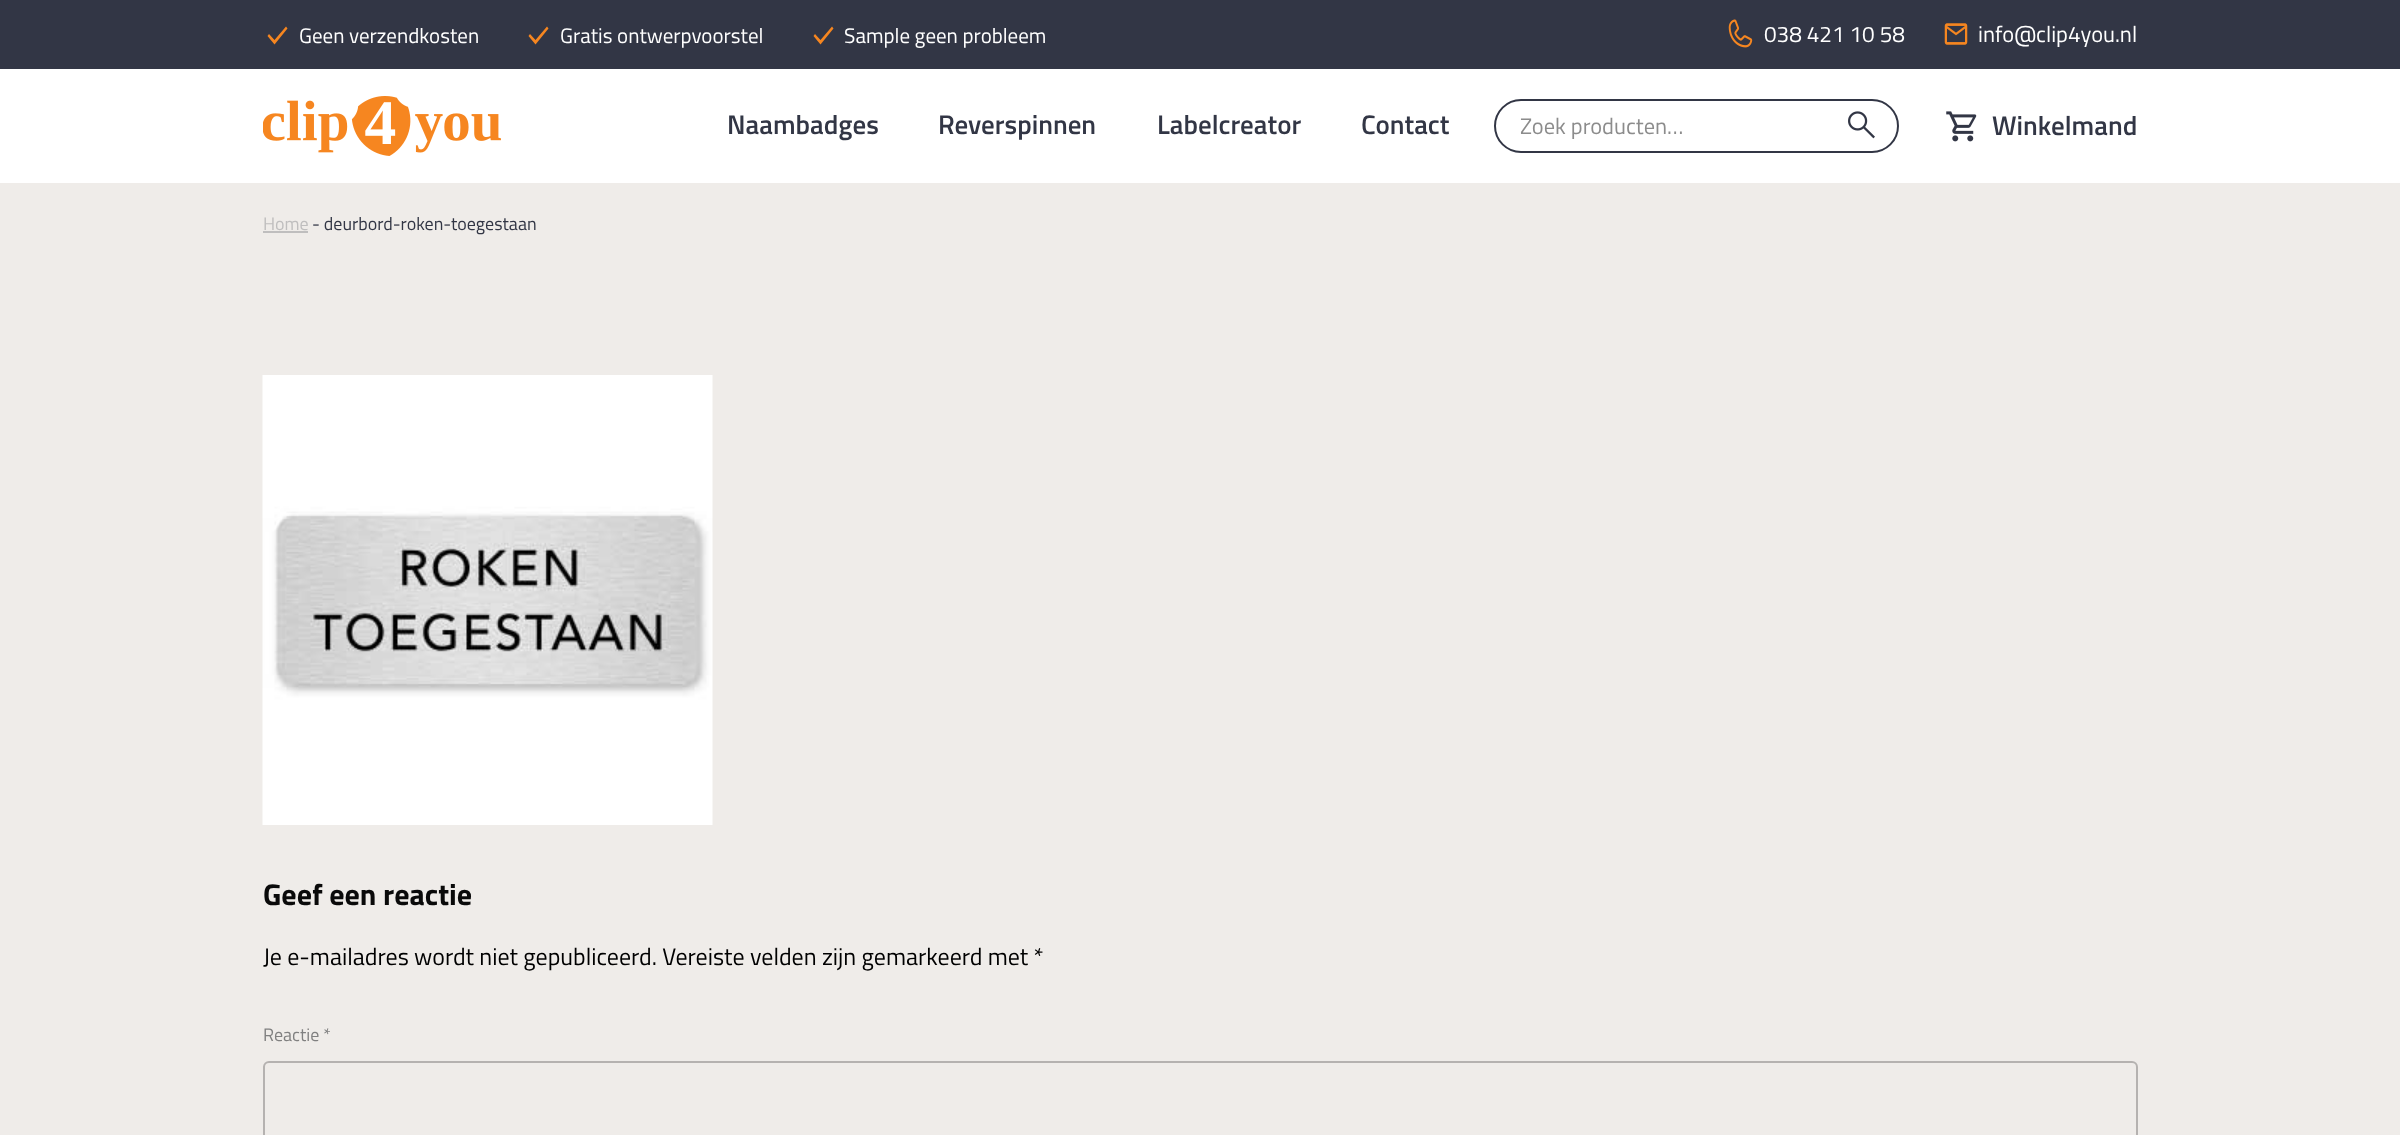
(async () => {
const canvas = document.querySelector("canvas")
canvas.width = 2400
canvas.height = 1135
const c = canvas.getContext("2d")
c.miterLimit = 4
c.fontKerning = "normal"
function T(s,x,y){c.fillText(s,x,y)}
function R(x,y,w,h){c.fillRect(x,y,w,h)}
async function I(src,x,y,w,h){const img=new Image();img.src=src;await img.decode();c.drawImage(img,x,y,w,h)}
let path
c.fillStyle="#efece9"
R(0,0,2400,1135)
c.fillStyle="#323645"
R(0,0,2400,69)
c.font="21px Titillium Web"
c.fillStyle="#fff"
T("Geen verzendkosten",299,43)
c.fillStyle="#f68620"
path = new Path2D("M274.5 44.5l-7-8.5l1.5-2l5.5 6l11.5-13.5l1.5 2z")
c.fill(path)
c.fillStyle="#fff"
T("Gratis ontwerpvoorstel",560,43)
c.fillStyle="#f68620"
path = new Path2D("M535.5 44.5l-7-8.5l1.5-2l5.5 6l11.5-13.5l1.5 2z")
c.fill(path)
c.fillStyle="#fff"
T("Sample geen probleem",844,43)
c.fillStyle="#f68620"
path = new Path2D("M820.5 44.5l-7-8.5l1.5-2l5.5 6l11.5-13.5l1.5 2z")
c.fill(path)
await I("1.png",1728,19,25,29)
c.font="22.5px Titillium Web"
c.fillStyle="#fff"
T("038 421 10 58",1764,42)
await I("2.png",1944,23,24,22)
T("info@clip4you.nl",1978,42)
R(0,69,2400,114)
await I("3.png",263,96,238,60)
c.font="600 27px Titillium Web"
c.fillStyle="#323645"
T("Naambadges",727,134)
T("Reverspinnen",938,134)
T("Labelcreator",1157,134)
T("Contact",1361,134)
c.beginPath()
c.roundRect(1495,100,403,52,26)
c.strokeStyle="#323645"
c.lineWidth=2
c.stroke()
c.font="22.5px Titillium Web"
c.fillStyle="#8c8c8c"
T("Zoek producten…",1520,134)
await I("4.png",1848,111,27,28)
await I("5.png",1946,111,31,31)
c.font="600 27px Titillium Web"
c.fillStyle="#323645"
T("Winkelmand",1992,135)
c.font="18px Titillium Web"
c.fillStyle="#bfbebe"
T("Home",263,230)
R(263,231,45,2)
c.fillStyle="#323645"
T("- deurbord-roken-toegestaan",312,230)
await I("6.png",262,375,451,450)
c.font="bold 30px Titillium Web"
c.fillStyle="#0a0a0a"
T("Geef een reactie",263,905)
c.font="24px Titillium Web"
c.fillStyle="#000"
T("Je e-mailadres wordt niet gepubliceerd. Vereiste velden zijn gemarkeerd met *",263,965)
c.font="18px Titillium Web"
c.fillStyle="#808080"
T("Reactie *",263,1041)
c.beginPath()
c.roundRect(264,1062,1873,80,5)
c.strokeStyle="#b5b2b0"
c.stroke()
})()
